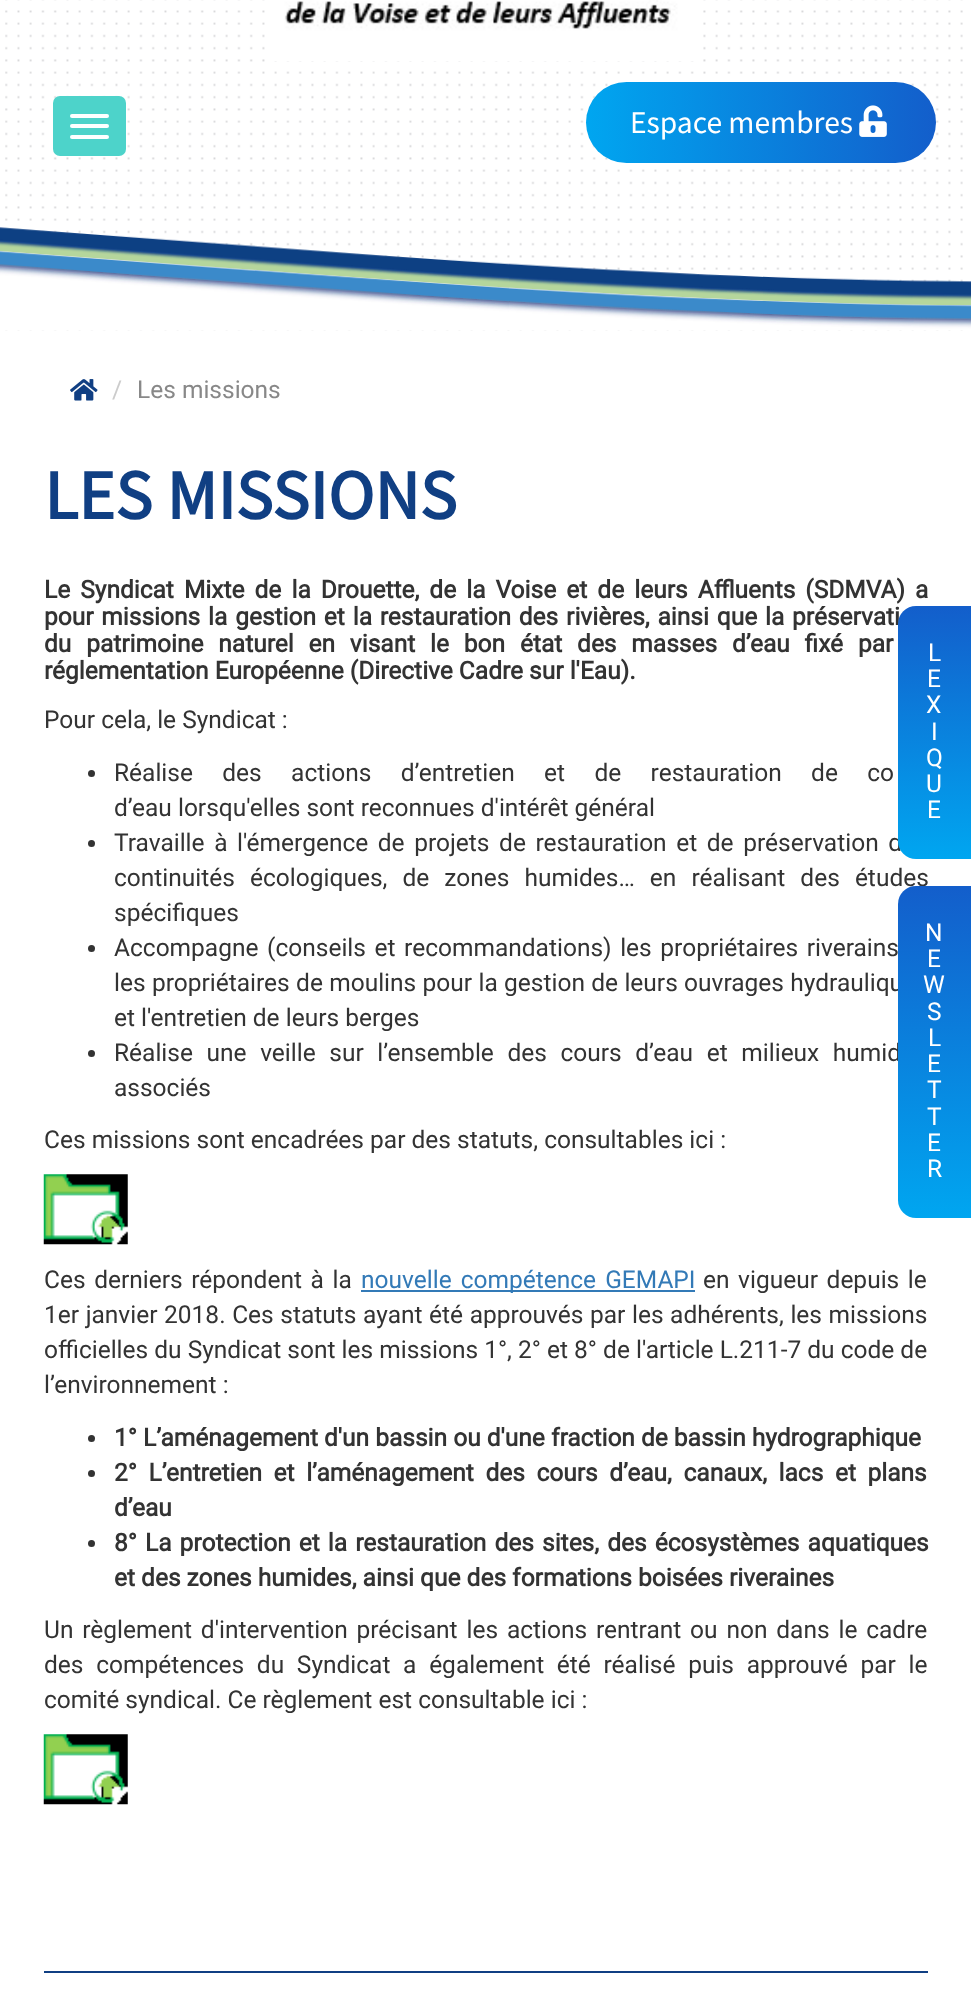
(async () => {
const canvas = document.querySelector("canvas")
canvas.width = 971
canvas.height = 2016
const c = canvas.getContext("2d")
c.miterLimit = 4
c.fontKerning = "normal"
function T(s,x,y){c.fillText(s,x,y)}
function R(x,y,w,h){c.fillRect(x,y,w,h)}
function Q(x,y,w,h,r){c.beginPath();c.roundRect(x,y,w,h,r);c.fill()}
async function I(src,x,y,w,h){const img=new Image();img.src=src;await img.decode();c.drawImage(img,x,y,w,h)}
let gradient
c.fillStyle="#fff"
R(0,0,971,2016)
await I("1.png",5,0,958,331)
await I("2.png",274,0,420,62)
c.fillStyle="#4dd3ca"
Q(53,96,73,60,7)
c.fillStyle="#fff"
Q(70,114,39,4,2)
Q(70,124,39,4,2)
Q(70,135,39,4,2)
gradient = c.createLinearGradient(586,123,936,123)
gradient.addColorStop(0,"#00a6f0")
gradient.addColorStop(1,"#135ecb")
c.fillStyle = gradient
Q(586,82,350,81,40.5)
c.font="31.5px Source Sans Pro"
c.fillStyle="#fff"
T("Espace membres",630,133)
await I("3.png",859,105,28,32)
await I("4.png",0,227,971,104)
await I("5.png",70,379,28,22)
c.font="24.5px Roboto"
c.fillStyle="#ccc"
T("/",112,398)
c.fillStyle="#888"
T("Les missions",137,398)
c.fillStyle="#103f83"
R(44,1971,884,2)
c.font="bold 70px Source Sans Pro"
T("LES MISSIONS",44,519)
c.wordSpacing="4px"
c.font="bold 24.5px Roboto"
c.fillStyle="#333"
T("Le Syndicat Mixte de la Drouette, de la Voise et de leurs Affluents (SDMVA) a",44,598)
c.wordSpacing="1.75px"
T("pour missions la gestion et la restauration des rivières, ainsi que la préservati",44,625)
c.wordSpacing="8.75px"
T("du patrimoine naturel en visant le bon état des masses d’eau fixé par",44,652)
c.wordSpacing="0px"
T("réglementation Européenne (Directive Cadre sur l'Eau).",44,679)
c.font="24.5px Roboto"
T("Pour cela, le Syndicat :",44,728)
c.beginPath()
c.arc(91.5,773.5,3.5,0,7)
c.fill()
c.wordSpacing="23.25px"
T("Réalise des actions d’entretien et de restauration de co",114,781)
c.wordSpacing="0px"
T("d’eau lorsqu'elles sont reconnues d'intérêt général",114,816)
c.beginPath()
c.arc(91.5,843.5,3.5,0,7)
c.fill()
c.wordSpacing="3.5px"
T("Travaille à l'émergence de projets de restauration et de préservation d",114,851)
c.wordSpacing="9px"
T("continuités écologiques, de zones humides… en réalisant des études",114,886)
c.wordSpacing="0px"
T("spécifiques",114,921)
c.beginPath()
c.arc(91.5,948.5,3.5,0,7)
c.fill()
c.wordSpacing="2.5px"
T("Accompagne (conseils et recommandations) les propriétaires riverains",114,956)
c.wordSpacing="0.25px"
T("les propriétaires de moulins pour la gestion de leurs ouvrages hydrauliqu",114,991)
c.wordSpacing="0px"
T("et l'entretien de leurs berges",114,1026)
c.beginPath()
c.arc(91.5,1053.5,3.5,0,7)
c.fill()
c.wordSpacing="7.5px"
T("Réalise une veille sur l’ensemble des cours d’eau et milieux humid",114,1061)
c.wordSpacing="0px"
T("associés",114,1096)
T("Ces missions sont encadrées par des statuts, consultables ici :",44,1148)
await I("6.png",43,1174,85,71)
c.wordSpacing="2.5px"
T("Ces derniers répondent à la",44,1288)
c.fillStyle="#337ab7"
R(361,1290,334,2)
c.wordSpacing="3px"
T("nouvelle compétence GEMAPI",361,1288)
c.wordSpacing="2.5px"
c.fillStyle="#333"
T("en vigueur depuis le",703,1288)
c.wordSpacing="0.5px"
T("1er janvier 2018. Ces statuts ayant été approuvés par les adhérents, les missions",44,1323)
c.wordSpacing="0px"
T("officielles du Syndicat sont les missions 1°, 2° et 8° de l'article L.211-7 du code de",44,1358)
T("l’environnement :",44,1393)
c.beginPath()
c.arc(91.5,1438.5,3.5,0,7)
c.fill()
c.font="bold 24.5px Roboto"
T("1° L’aménagement d'un bassin ou d'une fraction de bassin hydrographique",114,1446)
c.beginPath()
c.arc(91.5,1473.5,3.5,0,7)
c.fill()
c.wordSpacing="5.5px"
T("2° L’entretien et l’aménagement des cours d’eau, canaux, lacs et plans",114,1481)
c.wordSpacing="0px"
T("d’eau",114,1516)
c.beginPath()
c.arc(91.5,1543.5,3.5,0,7)
c.fill()
c.wordSpacing="2px"
T("8° La protection et la restauration des sites, des écosystèmes aquatiques",114,1551)
c.wordSpacing="0px"
T("et des zones humides, ainsi que des formations boisées riveraines",114,1586)
c.wordSpacing="2.75px"
c.font="24.5px Roboto"
T("Un règlement d'intervention précisant les actions rentrant ou non dans le cadre",44,1638)
c.wordSpacing="6.6px"
T("des compétences du Syndicat a également été réalisé puis approuvé par le",44,1673)
c.wordSpacing="0px"
T("comité syndical. Ce règlement est consultable ici :",44,1708)
await I("7.png",43,1734,85,71)
gradient = c.createLinearGradient(935,859,935,606)
gradient.addColorStop(0,"#00a6f0")
gradient.addColorStop(1,"#135ecb")
c.fillStyle = gradient
c.beginPath()
c.roundRect(898,606,73,253,[18,0,0,18])
c.fill()
c.fillStyle="#fff"
T("L",928,661)
T("E",927,687)
T("X",926,713)
T("I",931,740)
T("Q",926,766)
T("U",926,792)
T("E",927,818)
gradient = c.createLinearGradient(935,1218,935,886)
gradient.addColorStop(0,"#00a6f0")
gradient.addColorStop(1,"#135ecb")
c.fillStyle = gradient
c.beginPath()
c.roundRect(898,886,73,332,[18,0,0,18])
c.fill()
c.fillStyle="#fff"
T("N",925,941)
T("E",927,967)
T("W",923,993)
T("S",927,1020)
T("L",928,1046)
T("E",927,1072)
T("T",927,1098)
T("T",927,1125)
T("E",927,1151)
T("R",927,1177)
})()
